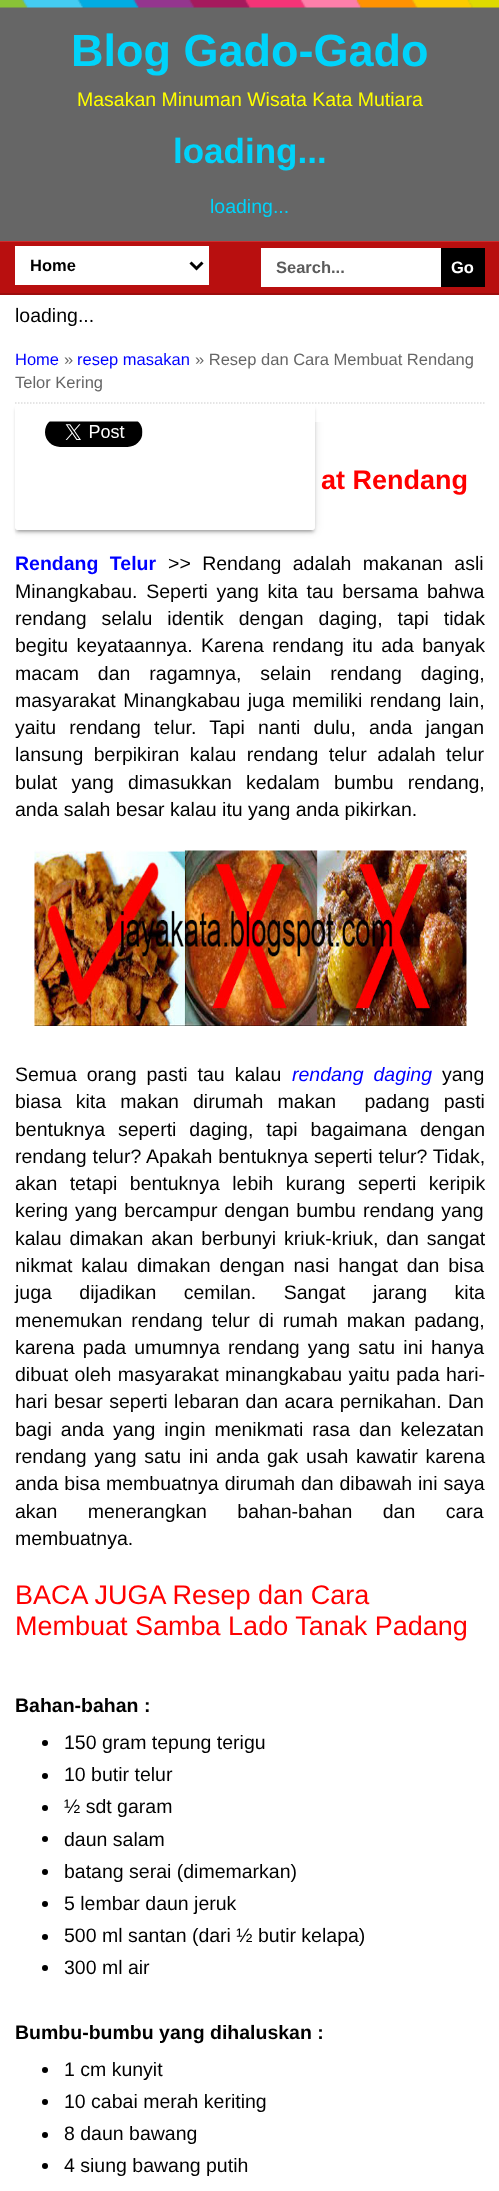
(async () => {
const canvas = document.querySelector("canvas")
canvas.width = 499
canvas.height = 2191
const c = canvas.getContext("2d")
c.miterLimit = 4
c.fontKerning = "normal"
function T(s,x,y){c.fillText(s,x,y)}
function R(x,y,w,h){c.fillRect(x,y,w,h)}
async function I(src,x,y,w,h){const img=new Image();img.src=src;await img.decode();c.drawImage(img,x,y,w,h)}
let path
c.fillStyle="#fff"
R(0,0,499,2191)
c.fillStyle="#666"
R(0,0,499,241)
await I("1.png",0,0,499,8)
c.font="bold 45px Liberation Sans"
c.fillStyle="#00d3fa"
T("Blog Gado-Gado",71,66)
c.font="19.5px Liberation Sans"
c.fillStyle="#ff0"
T("Masakan Minuman Wisata Kata Mutiara",77,106)
c.font="bold 35px Liberation Sans"
c.fillStyle="#00d3fa"
T("loading...",173,163)
c.font="19.5px Liberation Sans"
T("loading...",210,213)
c.fillStyle="#b80f0f"
R(0,242,499,51)
c.fillStyle="#d12c2c"
R(0,241,499,1)
c.fillStyle="#9c0d0d"
R(0,293,499,2)
c.fillStyle="#fff"
R(15,246,194,39)
path = new Path2D("M190.5 262.5l6 6l6-6")
c.strokeStyle="#000"
c.lineWidth=3
c.stroke(path)
c.font="bold 16.5px Liberation Sans"
c.fillStyle="#000"
T("Home",30,271)
c.fillStyle="#fff"
R(261,248,180,39)
c.fillStyle="#5b5b5b"
T("Search...",276,273)
c.fillStyle="#000"
R(441,248,44,39)
c.fillStyle="#fff"
T("Go",451,273)
c.font="19.5px Liberation Sans"
c.fillStyle="#000"
T("loading...",15,322)
path = new Path2D("M15 403h469.5")
c.strokeStyle="#ddd"
c.lineWidth=1.5
c.setLineDash([1.5,1.5])
c.stroke(path)
c.font="16.5px Liberation Sans"
c.fillStyle="#00f"
T("Home",15,365)
c.fillStyle="#666"
T("»",64,365)
c.fillStyle="#00f"
T("resep masakan",77,365)
c.fillStyle="#666"
T("» Resep dan Cara Membuat Rendang",195,365)
T("Telor Kering",15,388)
c.font="bold 27px Liberation Sans"
c.fillStyle="#f00"
T("at Rendang",321,489)
c.save()
c.beginPath()
c.rect(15,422,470,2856)
c.clip()
c.fillStyle="#0000001f"
c.filter="blur(4px)"
c.beginPath()
c.roundRect(15,407,300,124,3)
c.fill()
c.filter="none"
c.restore()
c.save()
path = new Path2D("M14 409h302v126h-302zm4-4h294c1.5 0 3 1.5 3 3v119c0 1.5-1.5 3-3 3h-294c-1.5 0-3-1.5-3-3v-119c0-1.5 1.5-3 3-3z")
c.clip(path,"evenodd")
c.fillStyle="#00000033"
c.filter="blur(1px)"
c.beginPath()
c.rect(18,413,294,118)
c.fill()
c.filter="none"
c.restore()
c.save()
path = new Path2D("M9 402h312v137h-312zm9 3h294c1.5 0 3 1.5 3 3v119c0 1.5-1.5 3-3 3h-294c-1.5 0-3-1.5-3-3v-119c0-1.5 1.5-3 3-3z")
c.clip(path,"evenodd")
c.fillStyle="#00000024"
c.filter="blur(1.5px)"
c.beginPath()
c.roundRect(15,408,300,125,3)
c.fill()
c.filter="none"
c.restore()
c.fillStyle="#fff"
c.beginPath()
c.roundRect(15,422,300,108,[0,0,3,3])
c.fill()
await I("2.png",45,421,98,26)
c.wordSpacing="6px"
c.font="bold 19.5px Liberation Sans"
c.fillStyle="#00f"
T("Rendang Telur",15,570)
c.font="19.5px Liberation Sans"
c.fillStyle="#000"
T(">> Rendang adalah makanan asli",168,570)
c.wordSpacing="3.25px"
T("Minangkabau. Seperti yang kita tau bersama bahwa",15,598)
c.wordSpacing="9.5px"
T("rendang selalu identik dengan daging, tapi tidak",15,625)
c.wordSpacing="3px"
T("begitu keyataannya. Karena rendang itu ada banyak",15,652)
c.wordSpacing="13.5px"
T("macam dan ragamnya, selain rendang daging,",15,680)
c.wordSpacing="2px"
T("masyarakat Minangkabau juga memiliki rendang lain,",15,707)
c.wordSpacing="7.75px"
T("yaitu rendang telur. Tapi nanti dulu, anda jangan",15,734)
c.wordSpacing="5px"
T("lansung berpikiran kalau rendang telur adalah telur",15,761)
c.wordSpacing="8.75px"
T("bulat yang dimasukkan kedalam bumbu rendang,",15,789)
c.wordSpacing="0px"
T("anda salah besar kalau itu yang anda pikirkan.",15,816)
await I("3.png",34,850,433,176)
c.wordSpacing="4.5px"
T("Semua orang pasti tau kalau",15,1081)
c.font="italic 19.5px Liberation Sans"
c.fillStyle="#00f"
T("rendang daging",292,1081)
c.wordSpacing="0px"
c.font="19.5px Liberation Sans"
c.fillStyle="#000"
T("yang",442,1081)
c.wordSpacing="8.75px"
T("biasa kita makan dirumah makan  padang pasti",15,1108)
c.wordSpacing="7.5px"
T("bentuknya seperti daging, tapi bagaimana dengan",15,1136)
c.wordSpacing="0.5px"
T("rendang telur? Apakah bentuknya seperti telur? Tidak,",15,1163)
c.wordSpacing="7px"
T("akan tetapi bentuknya lebih kurang seperti keripik",15,1190)
c.wordSpacing="1.5px"
T("kering yang bercampur dengan bumbu rendang yang",15,1217)
c.wordSpacing="2.5px"
T("kalau dimakan akan berbunyi kriuk-kriuk, dan sangat",15,1245)
c.wordSpacing="3.5px"
T("nikmat kalau dimakan dengan nasi hangat dan bisa",15,1272)
c.wordSpacing="22px"
T("juga dijadikan cemilan. Sangat jarang kita",15,1299)
c.wordSpacing="3.5px"
T("menemukan rendang telur di rumah makan padang,",15,1327)
c.wordSpacing="2.75px"
T("karena pada umumnya rendang yang satu ini hanya",15,1354)
c.wordSpacing="1px"
T("dibuat oleh masyarakat minangkabau yaitu pada hari-",15,1381)
T("hari besar seperti lebaran dan acara pernikahan. Dan",15,1408)
c.wordSpacing="3.5px"
T("bagi anda yang ingin menikmati rasa dan kelezatan",15,1436)
c.wordSpacing="2.25px"
T("rendang yang satu ini anda gak usah kawatir karena",15,1463)
c.wordSpacing="0.5px"
T("anda bisa membuatnya dirumah dan dibawah ini saya",15,1490)
c.wordSpacing="25px"
T("akan menerangkan bahan-bahan dan cara",15,1518)
c.wordSpacing="0px"
T("membuatnya.",15,1545)
c.font="27px Liberation Sans"
c.fillStyle="#f00"
T("BACA JUGA Resep dan Cara",15,1604)
T("Membuat Samba Lado Tanak Padang",15,1635)
c.font="bold 19.5px Liberation Sans"
c.fillStyle="#000"
T("Bahan-bahan :",15,1712)
c.beginPath()
c.arc(45,1743,3,0,7)
c.fill()
c.font="19.5px Liberation Sans"
T("150 gram tepung terigu",64,1749)
c.beginPath()
c.arc(45,1776,3,0,7)
c.fill()
T("10 butir telur",64,1781)
c.beginPath()
c.arc(45,1808,3,0,7)
c.fill()
T("½ sdt garam",64,1813)
c.beginPath()
c.arc(45,1839,3,0,7)
c.fill()
T("daun salam",64,1846)
c.beginPath()
c.arc(45,1872,3,0,7)
c.fill()
T("batang serai (dimemarkan)",64,1878)
c.beginPath()
c.arc(45,1904,3,0,7)
c.fill()
T("5 lembar daun jeruk",64,1910)
c.beginPath()
c.arc(45,1937,3,0,7)
c.fill()
T("500 ml santan (dari ½ butir kelapa)",64,1942)
c.beginPath()
c.arc(45,1968,3,0,7)
c.fill()
T("300 ml air",64,1974)
c.font="bold 19.5px Liberation Sans"
T("Bumbu-bumbu yang dihaluskan :",15,2039)
c.beginPath()
c.arc(45,2070,3,0,7)
c.fill()
c.font="19.5px Liberation Sans"
T("1 cm kunyit",64,2076)
c.beginPath()
c.arc(45,2102,3,0,7)
c.fill()
T("10 cabai merah keriting",64,2108)
c.beginPath()
c.arc(45,2135,3,0,7)
c.fill()
T("8 daun bawang",64,2140)
c.beginPath()
c.arc(45,2166,3,0,7)
c.fill()
T("4 siung bawang putih",64,2172)
})()
